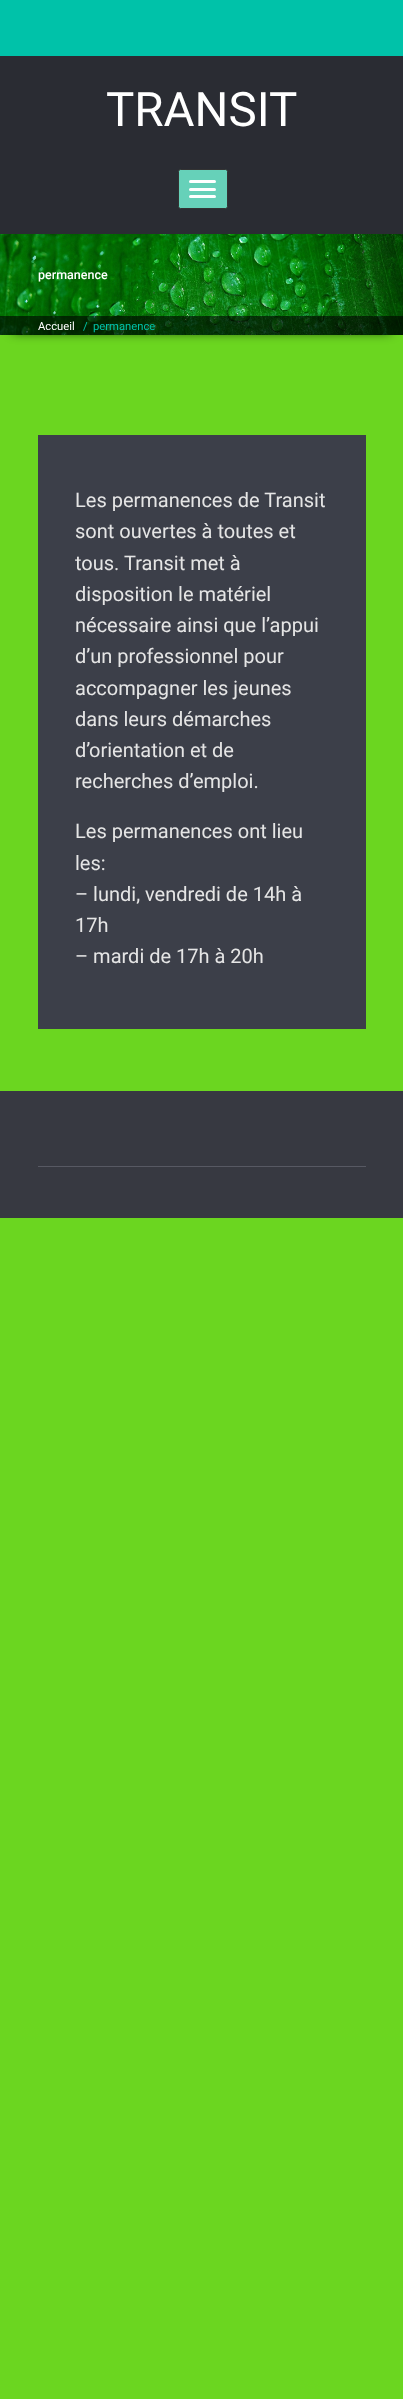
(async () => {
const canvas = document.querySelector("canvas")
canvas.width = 403
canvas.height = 2399
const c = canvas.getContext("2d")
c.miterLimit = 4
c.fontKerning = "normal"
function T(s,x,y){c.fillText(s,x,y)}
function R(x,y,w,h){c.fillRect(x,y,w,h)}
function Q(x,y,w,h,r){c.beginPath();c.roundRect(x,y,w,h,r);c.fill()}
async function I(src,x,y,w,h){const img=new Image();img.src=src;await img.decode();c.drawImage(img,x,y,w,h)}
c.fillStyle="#6bd620"
R(0,0,403,2399)
c.fillStyle="#00c2a9"
R(0,0,403,56)
c.fillStyle="#2a2c33"
R(0,56,403,178)
c.font="47.5px Roboto"
c.fillStyle="#fff"
T("TRANSIT",106,126)
c.fillStyle="#66d1b9"
c.beginPath()
c.roundRect(178.5,169.5,49,39,2)
c.fill()
c.strokeStyle="#333"
c.stroke()
c.fillStyle="#fff"
Q(189,180,27,3,1.5)
Q(189,188,27,3,1.5)
Q(189,195,27,3,1.5)
c.fillStyle="#000"
c.filter="blur(6px)"
c.beginPath()
c.rect(13,255,378,76)
c.fill()
c.filter="none"
await I("1.png",0,234,403,101)
c.font="500 12.5px Roboto"
c.fillStyle="#fff"
T("permanence",38,279)
c.fillStyle="#00000099"
R(0,316,403,19)
c.font="11.25px Roboto"
c.fillStyle="#fff"
T("Accueil",38,330)
c.fillStyle="#00c2a9"
T("/",83,330)
T("permanence",93,330)
c.fillStyle="#3c3f49"
R(38,435,328,594)
c.font="20px Roboto"
c.fillStyle="#e5e5e5"
T("Les permanences de Transit",75,507)
T("sont ouvertes à toutes et",75,538)
T("tous. Transit met à",75,570)
T("disposition le matériel",75,601)
T("nécessaire ainsi que l’appui",75,632)
T("d’un professionnel pour",75,663)
T("accompagner les jeunes",75,695)
T("dans leurs démarches",75,726)
T("d’orientation et de",75,757)
T("recherches d’emploi.",75,788)
T("Les permanences ont lieu",75,838)
T("les:",75,870)
T("– lundi, vendredi de 14h à",75,901)
T("17h",75,932)
T("– mardi de 17h à 20h",75,963)
c.fillStyle="#373941"
R(0,1091,403,127)
c.fillStyle="#575963"
R(38,1166,328,1)
})()
